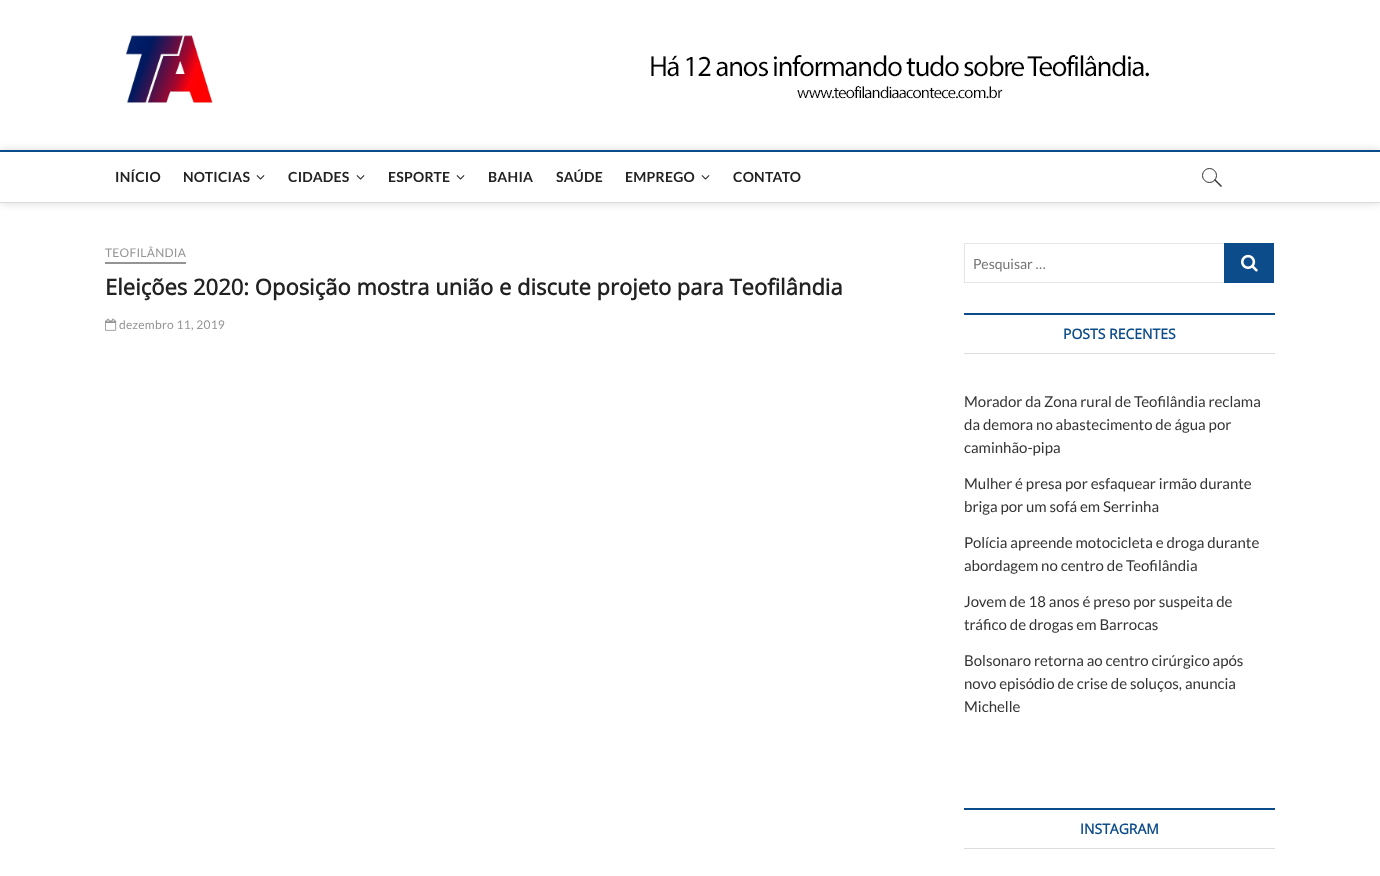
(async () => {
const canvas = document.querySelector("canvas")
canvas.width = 1380
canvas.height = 876
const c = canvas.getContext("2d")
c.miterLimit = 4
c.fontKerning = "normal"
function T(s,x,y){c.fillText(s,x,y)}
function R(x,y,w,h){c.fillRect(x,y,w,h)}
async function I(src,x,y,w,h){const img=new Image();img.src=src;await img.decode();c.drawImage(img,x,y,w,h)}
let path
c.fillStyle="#fff"
R(0,0,1380,876)
await I("1.png",126,35,87,68)
await I("2.png",651,55,498,44)
c.save()
path = new Path2D("M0 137h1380v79h-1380zm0 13h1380v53h-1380z")
c.clip(path,"evenodd")
c.fillStyle="#00000026"
c.filter="blur(4px)"
c.beginPath()
c.rect(0,150,1380,53)
c.fill()
c.filter="none"
c.restore()
c.fillStyle="#0c4c8a"
R(0,150,1380,2)
c.fillStyle="#ddd"
R(0,202,1380,1)
c.letterSpacing="0.25px"
c.font="bold 14px Lato"
c.fillStyle="#222"
T("INÍCIO",115,182)
T("NOTICIAS",183,182)
await I("3.png",256,175,9,5)
T("CIDADES",288,182)
await I("3.png",356,175,9,5)
T("ESPORTE",388,182)
await I("3.png",456,175,9,5)
T("BAHIA",488,182)
T("SAÚDE",556,182)
T("EMPREGO",625,182)
await I("3.png",701,175,9,5)
T("CONTATO",733,182)
c.beginPath()
c.arc(1209.5,175.5,7,0,7)
c.strokeStyle="#333"
c.stroke()
c.fillStyle="#333"
path = new Path2D("M1214 180l1-1l7 7l-1 1z")
c.fill(path)
c.font="12px Lato"
c.fillStyle="#949494"
T("TEOFILÂNDIA",105,257)
R(105,262,81,2)
c.letterSpacing="0px"
c.font="bold 22px Open Sans"
c.fillStyle="#222"
T("Eleições 2020: Oposição mostra união e discute projeto para Teofilândia",105,295)
await I("4.png",105,318,12,13)
c.letterSpacing="0.25px"
c.font="12px Lato"
c.fillStyle="#949494"
T("dezembro 11, 2019",119,329)
c.strokeStyle="#e6e6e6"
c.strokeRect(964.5,243.5,260,39)
c.letterSpacing="0px"
c.font="14px Lato"
c.fillStyle="#757575"
T("Pesquisar …",973,269)
c.fillStyle="#0c4c8a"
R(1224,243,50,40)
await I("5.png",1241,254,17,18)
R(964,313,311,2)
c.fillStyle="#ddd"
R(964,353,311,1)
c.font="bold 14px Open Sans"
c.fillStyle="#0c4c8a"
T("POSTS RECENTES",1063,339)
c.font="15px Lato"
c.fillStyle="#343434"
T("Morador da Zona rural de Teofilândia reclama",964,407)
T("da demora no abastecimento de água por",964,430)
T("caminhão-pipa",964,453)
T("Mulher é presa por esfaquear irmão durante",964,489)
T("briga por um sofá em Serrinha",964,512)
T("Polícia apreende motocicleta e droga durante",964,548)
T("abordagem no centro de Teofilândia",964,571)
T("Jovem de 18 anos é preso por suspeita de",964,607)
T("tráfico de drogas em Barrocas",964,630)
T("Bolsonaro retorna ao centro cirúrgico após",964,666)
T("novo episódio de crise de soluços, anuncia",964,689)
T("Michelle",964,712)
c.fillStyle="#0c4c8a"
R(964,808,311,2)
c.fillStyle="#ddd"
R(964,848,311,1)
c.font="bold 14px Open Sans"
c.fillStyle="#0c4c8a"
T("INSTAGRAM",1080,834)
})()
